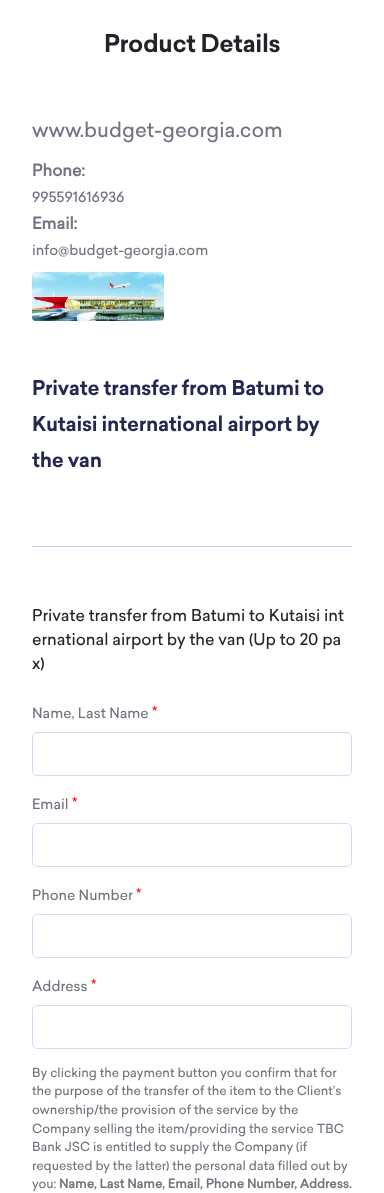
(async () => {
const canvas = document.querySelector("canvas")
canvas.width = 384
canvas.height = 1193
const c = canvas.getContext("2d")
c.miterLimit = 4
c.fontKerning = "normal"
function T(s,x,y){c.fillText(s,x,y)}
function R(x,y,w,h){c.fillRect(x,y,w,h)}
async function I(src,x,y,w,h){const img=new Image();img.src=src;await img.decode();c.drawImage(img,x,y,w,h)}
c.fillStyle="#fff"
R(0,0,384,1193)
c.letterSpacing="-0.4px"
c.font="bold 24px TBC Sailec"
c.fillStyle="#212529"
T("Product Details",104,52)
c.letterSpacing="0px"
c.font="500 20px TBC Sailec"
c.fillStyle="#73737f"
T("www.budget-georgia.com",32,137)
c.font="bold 16px 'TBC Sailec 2'"
T("Phone:",32,176)
c.font="500 14px TBC Sailec"
T("995591616936",32,202)
c.font="bold 16px 'TBC Sailec 2'"
T("Email:",32,229)
c.font="500 14px TBC Sailec"
T("info@budget-georgia.com",32,255)
await I("1.png",32,272,132,49)
c.letterSpacing="-0.25px"
c.font="bold 20px TBC Sailec"
c.fillStyle="#262852"
T("Private transfer from Batumi to",32,395)
T("Kutaisi international airport by",32,431)
T("the van",32,467)
c.fillStyle="#bbcaed"
R(32,546,320,1)
c.letterSpacing="0px"
c.font="500 16px TBC Sailec"
c.fillStyle="#212529"
T("Private transfer from Batumi to Kutaisi int",32,621)
T("ernational airport by the van (Up to 20 pa",32,645)
T("x)",32,669)
c.font="500 14px TBC Sailec"
c.fillStyle="#73737f"
T("Name, Last Name",32,718)
c.font="500 16px TBC Sailec"
c.fillStyle="#f00"
T("*",152,718)
c.beginPath()
c.roundRect(32.5,732.5,319,43,4.5)
c.strokeStyle="#d1dcf4"
c.stroke()
c.font="500 14px TBC Sailec"
c.fillStyle="#73737f"
T("Email",32,809)
c.font="500 16px TBC Sailec"
c.fillStyle="#f00"
T("*",72,809)
c.beginPath()
c.roundRect(32.5,823.5,319,43,4.5)
c.stroke()
c.font="500 14px TBC Sailec"
c.fillStyle="#73737f"
T("Phone Number",32,900)
c.font="500 16px TBC Sailec"
c.fillStyle="#f00"
T("*",136,900)
c.beginPath()
c.roundRect(32.5,914.5,319,43,4.5)
c.stroke()
c.font="500 14px TBC Sailec"
c.fillStyle="#73737f"
T("Address",32,991)
c.font="500 16px TBC Sailec"
c.fillStyle="#f00"
T("*",91,991)
c.beginPath()
c.roundRect(32.5,1005.5,319,43,4.5)
c.stroke()
c.font="500 12.4px TBC Sailec"
c.fillStyle="#73737f"
T("By clicking the payment button you confirm that for",32,1077)
T("the purpose of the transfer of the item to the Client’s",32,1095)
T("ownership/the provision of the service by the",32,1114)
T("Company selling the item/providing the service TBC",32,1133)
T("Bank JSC is entitled to supply the Company (if",32,1151)
T("requested by the latter) the personal data filled out by",32,1170)
T("you:",32,1188)
c.font="bold 12.4px 'TBC Sailec 2'"
T("Name, Last Name, Email, Phone Number, Address.",59,1188)
})()
